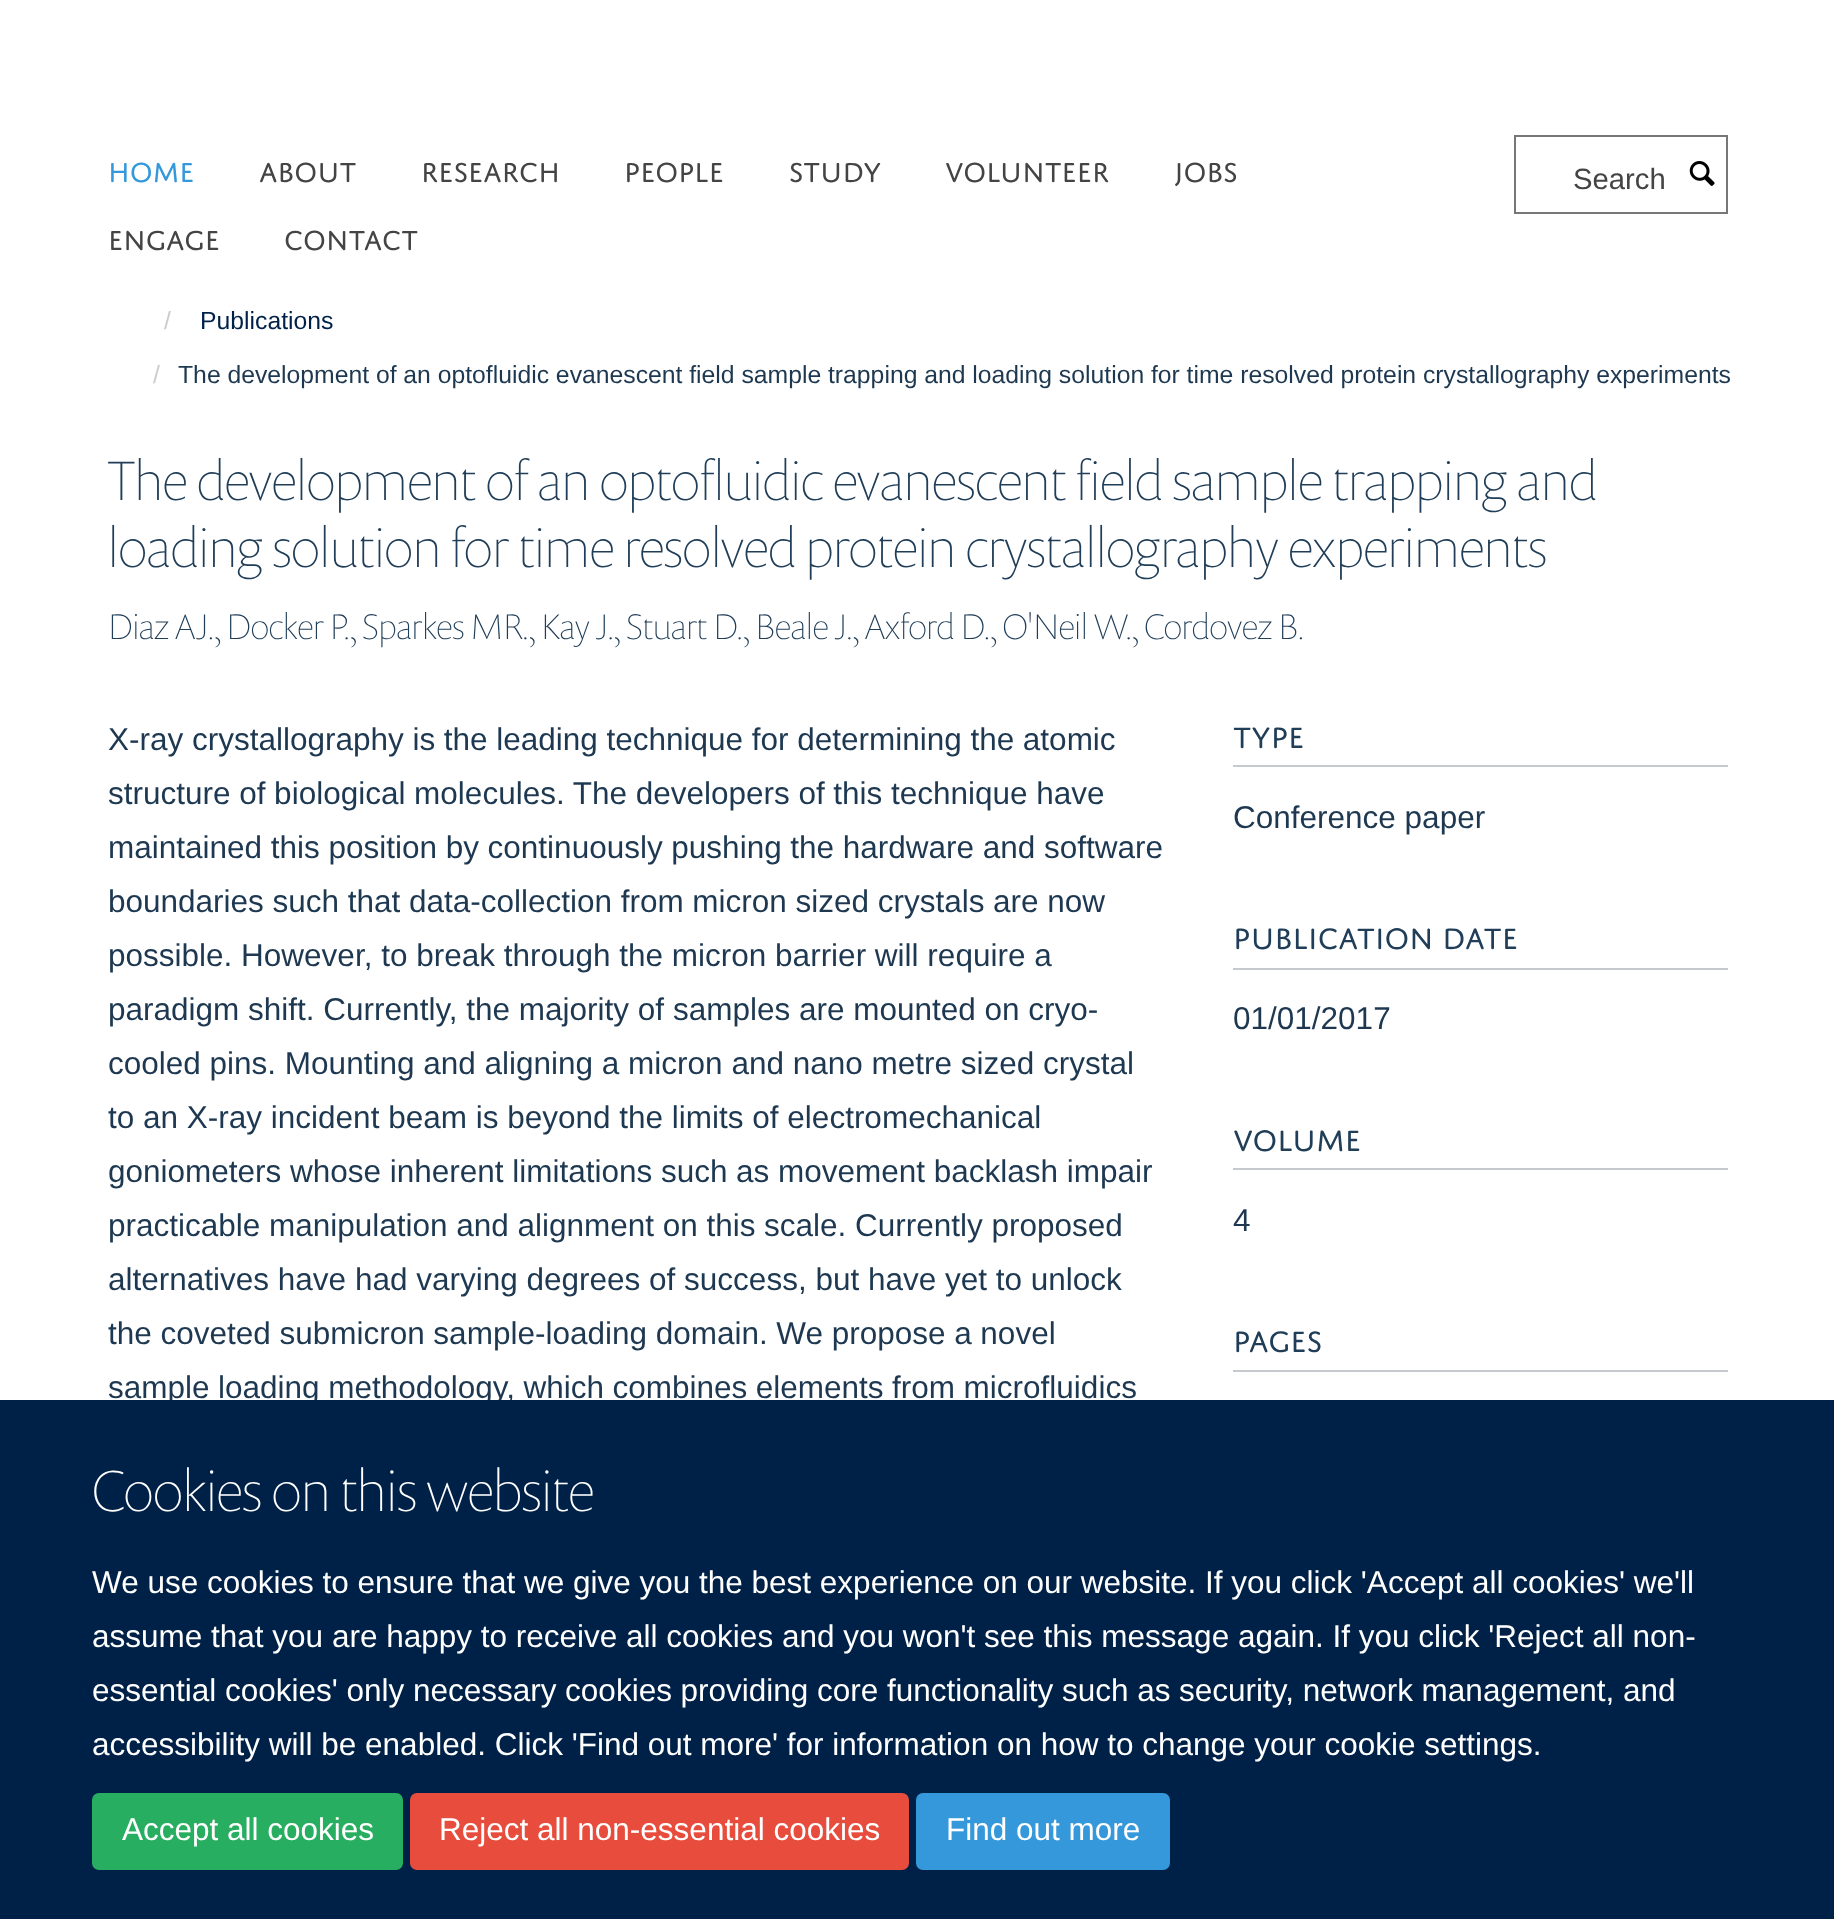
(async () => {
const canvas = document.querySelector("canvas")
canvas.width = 1834
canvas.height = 1919
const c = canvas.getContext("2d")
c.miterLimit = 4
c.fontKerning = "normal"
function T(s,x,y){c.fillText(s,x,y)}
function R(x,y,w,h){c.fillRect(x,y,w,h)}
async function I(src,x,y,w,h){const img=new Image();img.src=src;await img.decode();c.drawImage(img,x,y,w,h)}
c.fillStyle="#fff"
R(0,0,1834,1919)
c.font="29.25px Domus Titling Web"
c.fillStyle="#3498db"
T("HOME",108,182)
c.fillStyle="#444"
T("ABOUT",259,182)
T("RESEARCH",421,182)
T("PEOPLE",624,182)
T("STUDY",789,182)
T("VOLUNTEER",945,182)
T("JOBS",1174,182)
T("ENGAGE",108,250)
T("CONTACT",284,250)
c.strokeStyle="#777"
c.lineWidth=2
c.strokeRect(1515,136,212,77)
c.font="29.25px Liberation Sans"
T("Search",1573,189)
await I("1.png",1689,161,26,25)
c.font="24.75px Liberation Sans"
c.fillStyle="#ccc"
T("/",164,329)
c.fillStyle="#002147"
T("Publications",200,329)
c.fillStyle="#ccc"
T("/",153,383)
c.wordSpacing="-0.1px"
c.fillStyle="#1d3850"
T("The development of an optofluidic evanescent field sample trapping and loading solution for time resolved protein crystallography experiments",178,383)
c.wordSpacing="0px"
c.font="100 56.25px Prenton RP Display"
c.fillStyle="#203e58"
T("The development of an optofluidic evanescent field sample trapping and",108,500)
T("loading solution for time resolved protein crystallography experiments",108,567)
c.font="100 36px Prenton RP Display"
T("Diaz AJ., Docker P., Sparkes MR., Kay J., Stuart D., Beale J., Axford D., O'Neil W., Cordovez B.",108,639)
c.wordSpacing="-0.1px"
c.font="31.5px Liberation Sans"
c.fillStyle="#1d3850"
T("X-ray crystallography is the leading technique for determining the atomic",108,750)
T("structure of biological molecules. The developers of this technique have",108,804)
T("maintained this position by continuously pushing the hardware and software",108,858)
T("boundaries such that data-collection from micron sized crystals are now",108,912)
c.wordSpacing="0px"
T("possible. However, to break through the micron barrier will require a",108,966)
T("paradigm shift. Currently, the majority of samples are mounted on cryo-",108,1020)
T("cooled pins. Mounting and aligning a micron and nano metre sized crystal",108,1074)
T("to an X-ray incident beam is beyond the limits of electromechanical",108,1128)
c.wordSpacing="-0.1px"
T("goniometers whose inherent limitations such as movement backlash impair",108,1182)
T("practicable manipulation and alignment on this scale. Currently proposed",108,1236)
c.wordSpacing="0px"
T("alternatives have had varying degrees of success, but have yet to unlock",108,1290)
c.wordSpacing="-0.1px"
T("the coveted submicron sample-loading domain. We propose a novel",108,1344)
c.wordSpacing="-0.25px"
T("sample loading methodology, which combines elements from microfluidics",108,1398)
c.fillStyle="#c6cacf"
R(1233,765,495,2)
c.wordSpacing="0px"
c.font="31.5px Domus Titling Web"
c.fillStyle="#203e58"
T("TYPE",1233,748)
c.font="31.5px Liberation Sans"
c.fillStyle="#1d3850"
T("Conference paper",1233,828)
c.fillStyle="#c6cacf"
R(1233,968,495,2)
c.font="31.5px Domus Titling Web"
c.fillStyle="#203e58"
T("PUBLICATION DATE",1233,949)
c.font="31.5px Liberation Sans"
c.fillStyle="#1d3850"
T("01/01/2017",1233,1029)
c.fillStyle="#c6cacf"
R(1233,1168,495,2)
c.font="31.5px Domus Titling Web"
c.fillStyle="#203e58"
T("VOLUME",1233,1151)
c.font="31.5px Liberation Sans"
c.fillStyle="#1d3850"
T("4",1233,1231)
c.fillStyle="#c6cacf"
R(1233,1370,495,2)
c.font="31.5px Domus Titling Web"
c.fillStyle="#203e58"
T("PAGES",1233,1352)
c.fillStyle="#002147"
R(0,1400,1834,519)
c.font="100 58.5px Prenton RP Display"
c.fillStyle="#fff"
T("Cookies on this website",92,1511)
c.font="31.5px Liberation Sans"
T("We use cookies to ensure that we give you the best experience on our website. If you click 'Accept all cookies' we'll",92,1593)
T("assume that you are happy to receive all cookies and you won't see this message again. If you click 'Reject all non-",92,1647)
c.wordSpacing="-0.1px"
T("essential cookies' only necessary cookies providing core functionality such as security, network management, and",92,1701)
c.wordSpacing="0px"
T("accessibility will be enabled. Click 'Find out more' for information on how to change your cookie settings.",92,1755)
c.fillStyle="#27ae60"
c.beginPath()
c.roundRect(93,1794,309,75,6)
c.fill()
c.strokeStyle="#27ae60"
c.stroke()
c.fillStyle="#fff"
T("Accept all cookies",122,1840)
c.fillStyle="#e74c3c"
c.beginPath()
c.roundRect(411,1794,497,75,6)
c.fill()
c.strokeStyle="#e74c3c"
c.stroke()
c.fillStyle="#fff"
T("Reject all non-essential cookies",439,1840)
c.fillStyle="#3498db"
c.beginPath()
c.roundRect(917,1794,252,75,6)
c.fill()
c.strokeStyle="#3498db"
c.stroke()
c.fillStyle="#fff"
T("Find out more",946,1840)
})()
